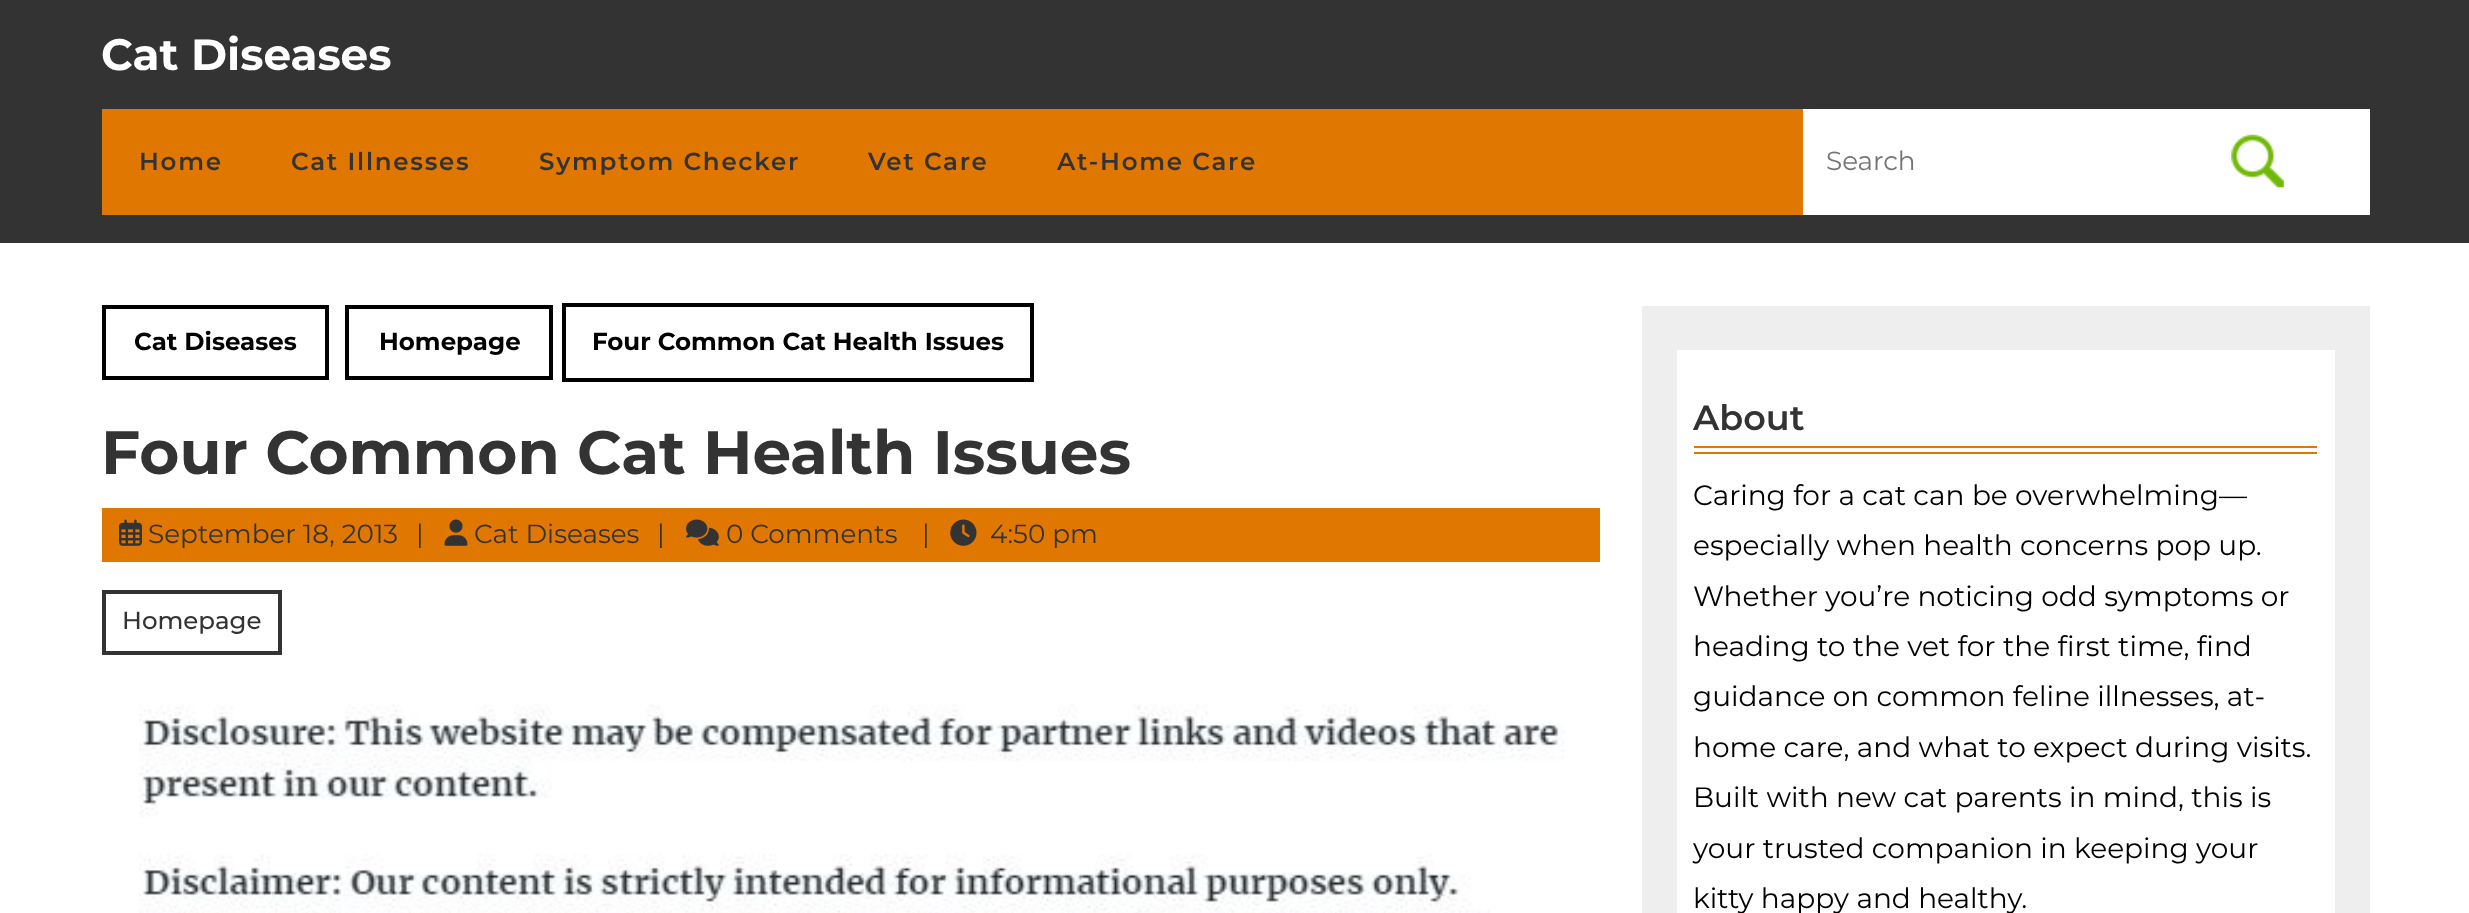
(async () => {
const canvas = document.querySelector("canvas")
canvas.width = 2469
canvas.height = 913
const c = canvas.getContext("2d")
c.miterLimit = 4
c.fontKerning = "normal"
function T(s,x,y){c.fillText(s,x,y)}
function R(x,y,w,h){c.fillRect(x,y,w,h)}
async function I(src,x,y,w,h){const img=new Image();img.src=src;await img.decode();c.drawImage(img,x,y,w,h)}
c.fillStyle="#fff"
R(0,0,2469,913)
c.fillStyle="#333"
R(0,0,2469,243)
c.font="bold 43.75px Montserrat"
c.fillStyle="#fff"
T("Cat Diseases",101,70)
c.fillStyle="#e07700"
R(102,109,1701,106)
c.letterSpacing="1.75px"
c.font="600 24.5px Montserrat"
c.fillStyle="#333"
T("Home",139,170)
T("Cat Illnesses",291,170)
T("Symptom Checker",539,170)
T("Vet Care",868,170)
T("At-Home Care",1057,170)
c.fillStyle="#fff"
R(1803,109,567,106)
c.letterSpacing="0px"
c.font="26.25px Montserrat"
c.fillStyle="#757575"
T("Search",1826,170)
await I("1.png",2231,134,53,54)
c.strokeStyle="#000"
c.lineWidth=4
c.strokeRect(104,307,223,71)
c.font="bold 24.5px Montserrat"
c.fillStyle="#000"
T("Cat Diseases",134,350)
c.strokeRect(347,307,204,71)
T("Homepage",379,350)
c.strokeRect(564,305,468,75)
T("Four Common Cat Health Issues",592,350)
c.font="bold 61.25px Montserrat"
c.fillStyle="#333"
T("Four Common Cat Health Issues",101,474)
c.fillStyle="#e07700"
R(102,508,1498,54)
await I("2.png",119,519,23,27)
c.font="26.25px Montserrat"
c.fillStyle="#333"
T("September 18, 2013",148,543)
T("|",416,543)
await I("3.png",444,519,24,27)
T("Cat Diseases",474,543)
T("|",657,543)
await I("4.png",686,519,33,27)
T("0 Comments",726,543)
T("|",922,543)
await I("5.png",950,519,27,27)
T("4:50 pm",990,543)
c.strokeStyle="#333"
c.strokeRect(104,592,176,61)
c.font="500 24.5px Montserrat"
T("Homepage",122,629)
await I("6.png",139,704,1426,209)
c.fillStyle="#eee"
R(1642,306,728,607)
c.fillStyle="#fff"
R(1677,350,658,563)
c.fillStyle="#e07700"
R(1694,446,623,2)
R(1694,452,623,2)
c.font="600 35px Montserrat"
c.fillStyle="#333"
T("About",1693,430)
c.font="28px Montserrat"
c.fillStyle="#000"
T("Caring for a cat can be overwhelming—",1693,505)
T("especially when health concerns pop up.",1693,555)
T("Whether you’re noticing odd symptoms or",1693,606)
T("heading to the vet for the first time, find",1693,656)
T("guidance on common feline illnesses, at-",1693,706)
T("home care, and what to expect during visits.",1693,757)
T("Built with new cat parents in mind, this is",1693,807)
T("your trusted companion in keeping your",1693,858)
T("kitty happy and healthy.",1693,908)
})()
